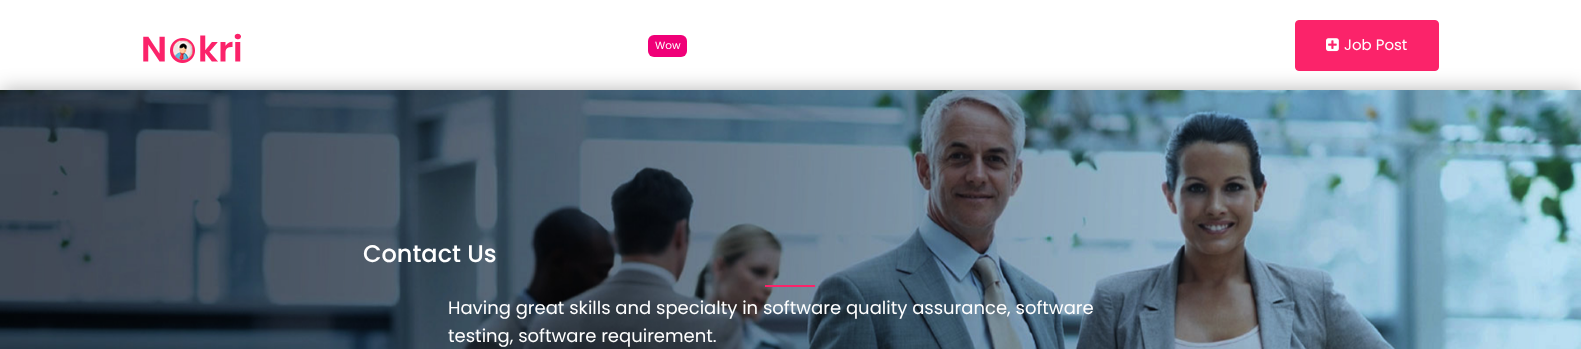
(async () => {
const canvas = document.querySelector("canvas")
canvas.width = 1581
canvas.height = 349
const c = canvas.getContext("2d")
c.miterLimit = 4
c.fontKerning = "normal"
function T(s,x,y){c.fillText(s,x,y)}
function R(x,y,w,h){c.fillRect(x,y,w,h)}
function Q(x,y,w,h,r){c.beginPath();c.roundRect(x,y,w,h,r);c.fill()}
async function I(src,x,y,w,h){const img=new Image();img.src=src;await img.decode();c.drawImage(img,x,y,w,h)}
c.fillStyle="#fff"
R(0,0,1581,349)
c.fillStyle="#0000004d"
c.filter="blur(10px)"
c.beginPath()
c.rect(1,90,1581,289)
c.fill()
c.filter="none"
await I("1.png",143,33,98,30)
c.fillStyle="#f00078"
Q(648,35,39,22,6)
c.font="10.5px Poppins"
c.fillStyle="#fff"
T("Wow",655,49)
c.fillStyle="#fb236a"
c.beginPath()
c.roundRect(1295.5,20.5,143,50,3.5)
c.fill()
c.strokeStyle="#fb236a"
c.stroke()
await I("2.png",1326,38,13,14)
c.font="15px Poppins"
c.fillStyle="#fff"
T("Job Post",1344,50)
await I("3.png",0,90,1581,259)
c.font="500 24px Poppins"
T("Contact Us",363,262)
c.fillStyle="#fb236a"
R(765,285,50,2)
c.font="18px Poppins"
c.fillStyle="#fff"
T("Having great skills and specialty in software quality assurance, software",448,314)
T("testing, software requirement.",448,342)
})()
